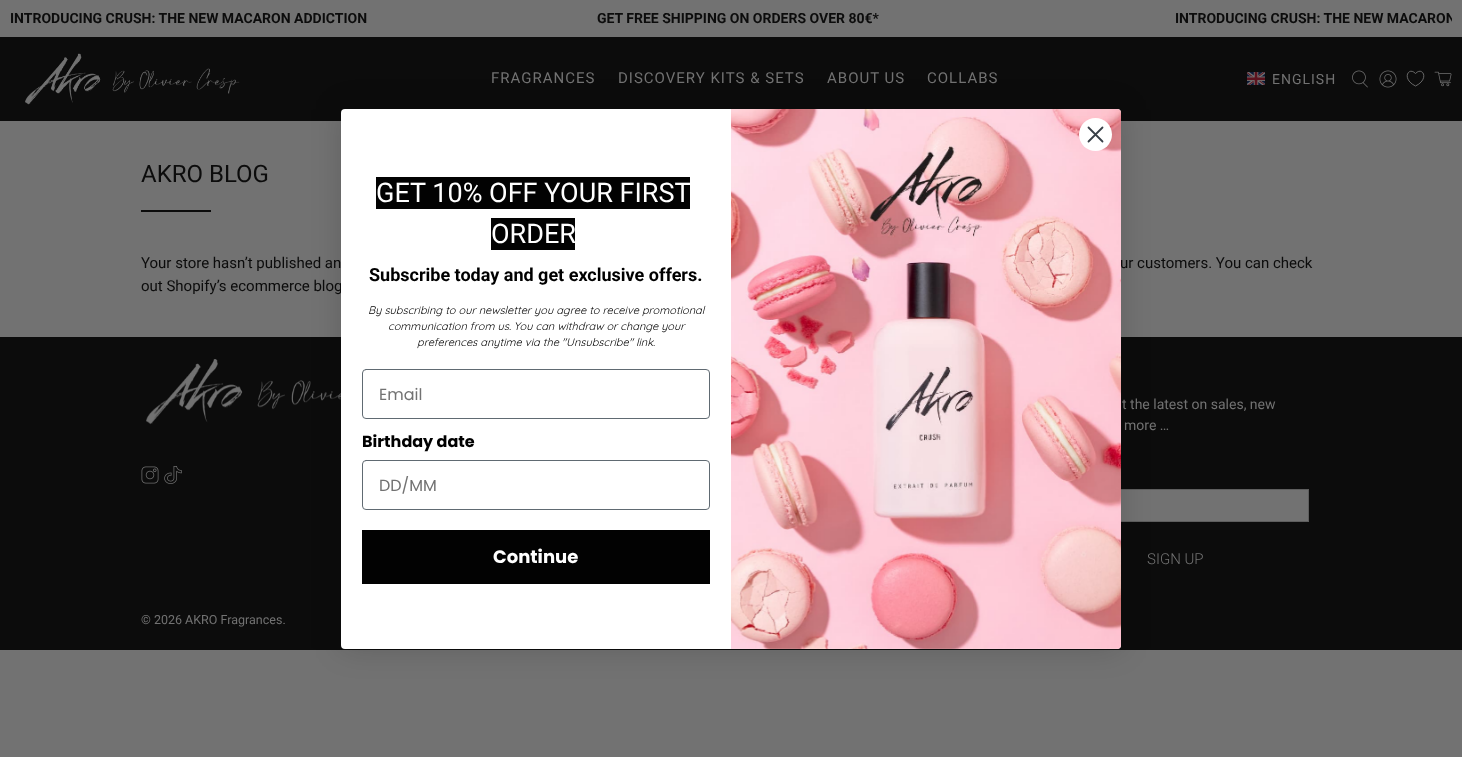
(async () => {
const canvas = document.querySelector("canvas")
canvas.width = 1462
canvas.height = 757
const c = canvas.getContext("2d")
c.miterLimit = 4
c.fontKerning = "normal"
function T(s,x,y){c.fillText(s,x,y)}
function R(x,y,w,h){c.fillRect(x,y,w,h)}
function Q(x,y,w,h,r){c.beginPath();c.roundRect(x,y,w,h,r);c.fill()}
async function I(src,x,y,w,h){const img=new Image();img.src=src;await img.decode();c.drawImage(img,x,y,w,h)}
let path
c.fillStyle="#727272"
R(0,0,1462,757)
c.font="bold 14px Roboto"
c.fillStyle="#0c0c0c"
T("INTRODUCING CRUSH: THE NEW MACARON ADDICTION",10,23)
T("GET FREE SHIPPING ON ORDERS OVER 80€*",597,23)
c.save()
c.beginPath()
c.rect(10,10,1442,17)
c.clip()
T("INTRODUCING CRUSH: THE NEW MACARON",1175,23)
c.restore()
R(0,37,1462,84)
await I("1.png",25,53,215,52)
c.letterSpacing="1px"
c.font="15px Roboto"
c.fillStyle="#727272"
T("FRAGRANCES",491,83)
T("DISCOVERY KITS & SETS",618,83)
T("ABOUT US",827,83)
T("COLLABS",927,83)
await I("2.png",1247,72,18,13)
c.font="14px Roboto"
T("ENGLISH",1272,84)
await I("3.png",1352,70,16,18)
await I("4.png",1379,70,18,18)
path = new Path2D("M1415.5 86c-14.5-7-7-20 0-12.5c7-7.5 14.5 5.5 0 12.5z")
c.strokeStyle="#727272"
c.lineWidth=0.9
c.stroke(path)
await I("5.png",1434,71,18,16)
c.letterSpacing="0px"
c.font="24px Roboto"
c.fillStyle="#0c0c0c"
T("AKRO BLOG",141,182)
R(141,210,70,2)
c.font="15px Roboto"
T("Your store hasn’t published an",141,268)
T("ur customers. You can check",1120,268)
T("out Shopify’s ecommerce blog",141,291)
R(0,337,1462,313)
await I("7.png",146,359,195,66)
c.fillStyle="#727272"
R(1121,490,187,31)
c.strokeStyle="#5e5e5e"
c.lineWidth=1
c.strokeRect(1041.5,489.5,267,32)
c.fillStyle="#00000026"
c.filter="blur(15px)"
c.beginPath()
c.roundRect(341,109,780,540,4)
c.fill()
c.filter="none"
c.fillStyle="#fff"
Q(341,109,780,540,4)
await I("6.png",731,109,390,540)
c.beginPath()
c.arc(1095.5,134.5,16.5,0,7)
c.fill()
path = new Path2D("M1088.5 127.5l14 14m-14 0l14-14z")
c.strokeStyle="#373f47"
c.lineWidth=1.8
c.lineCap="round"
c.lineJoin="round"
c.stroke(path)
c.fillStyle="#020202"
R(376,177,314,32)
c.font="27px Roboto"
c.fillStyle="#fff"
T("GET 10% OFF YOUR FIRST",376,202)
c.fillStyle="#020202"
R(491,218,84,32)
c.fillStyle="#fff"
T("ORDER",491,243)
c.font="bold 18px Roboto"
c.fillStyle="#000"
T("Subscribe today and get exclusive offers.",369,281)
c.font="italic 300 11px Quicksand"
T("By subscribing to our newsletter you agree to receive promotional",368,314)
T("communication from us. You can withdraw or change your",388,330)
T("preferences anytime via the \"Unsubscribe\" link.",417,346)
c.beginPath()
c.roundRect(362.5,369.5,347,49,3.5)
c.strokeStyle="#606a72"
c.lineWidth=1
c.lineJoin="miter"
c.stroke()
c.font="16px Poppins"
c.fillStyle="#727272"
T("Email",379,400)
c.font="bold 16px Poppins"
c.fillStyle="#000"
T("Birthday date",362,447)
c.beginPath()
c.roundRect(362.5,460.5,347,49,3.5)
c.stroke()
c.font="16px Poppins"
c.fillStyle="#727272"
T("DD/MM",379,491)
c.fillStyle="#020202"
R(362,530,348,54)
c.font="bold 18px Poppins"
c.fillStyle="#fff"
T("Continue",493,563)
await I("8.png",141,466,18,18)
await I("9.png",164,466,18,18)
c.font="14px Roboto"
c.fillStyle="#727272"
T("t the latest on sales, new",1122,409)
T("more …",1124,430)
c.font="300 15px Roboto"
T("SIGN UP",1147,564)
c.font="12.5px Roboto"
T("© 2026 AKRO Fragrances.",141,624)
})()
